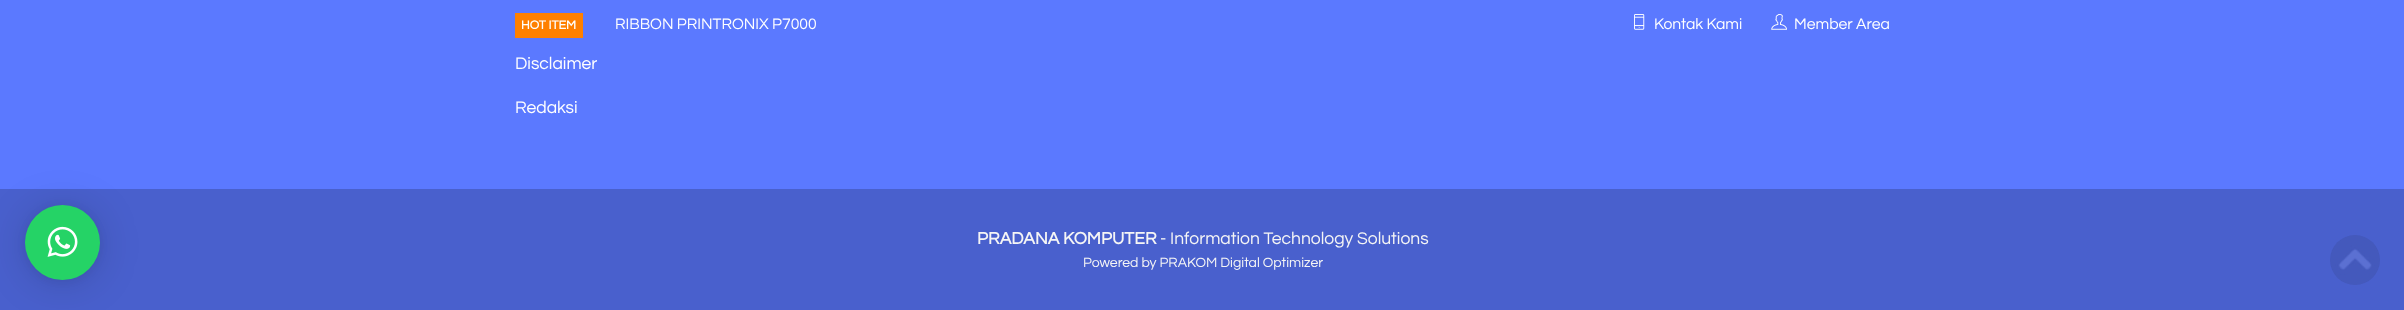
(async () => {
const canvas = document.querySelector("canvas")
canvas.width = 2404
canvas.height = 310
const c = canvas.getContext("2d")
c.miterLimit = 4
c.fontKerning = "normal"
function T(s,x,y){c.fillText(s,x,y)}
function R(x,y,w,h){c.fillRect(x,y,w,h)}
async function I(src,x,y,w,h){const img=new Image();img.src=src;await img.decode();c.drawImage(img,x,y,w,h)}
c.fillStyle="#5b79ff"
R(0,0,2404,310)
c.fillStyle="#4960cd"
R(0,189,2404,121)
c.fillStyle="#00000029"
c.filter="blur(20px)"
c.beginPath()
c.roundRect(25,208,75,75,37.5)
c.fill()
c.filter="none"
c.fillStyle="#0000000f"
c.filter="blur(4px)"
c.beginPath()
c.roundRect(25,206,75,75,37.5)
c.fill()
c.filter="none"
c.fillStyle="#25d366"
c.beginPath()
c.arc(62.5,242.5,37.5,0,7)
c.fill()
await I("1.png",47,226,31,31)
c.fillStyle="#ff8000"
R(515,13,68,25)
c.font="bold 12.5px Questrial"
c.fillStyle="#fff"
T("HOT ITEM",521,29)
c.font="15.75px Questrial"
T("RIBBON PRINTRONIX P7000",615,29)
await I("2.png",1634,14,11,16)
T("Kontak Kami",1654,29)
await I("3.png",1771,14,16,16)
T("Member Area",1794,29)
c.font="17.5px Questrial"
T("Disclaimer",515,69)
T("Redaksi",515,113)
c.font="bold 17.5px Questrial"
c.fillStyle="#f5f5f5"
T("PRADANA KOMPUTER",977,244)
c.font="17.5px Questrial"
T("- Information Technology Solutions",1160,244)
c.font="14px Questrial"
T("Powered by PRAKOM Digital Optimizer",1083,267)
await I("4.png",2330,235,50,50)
})()
